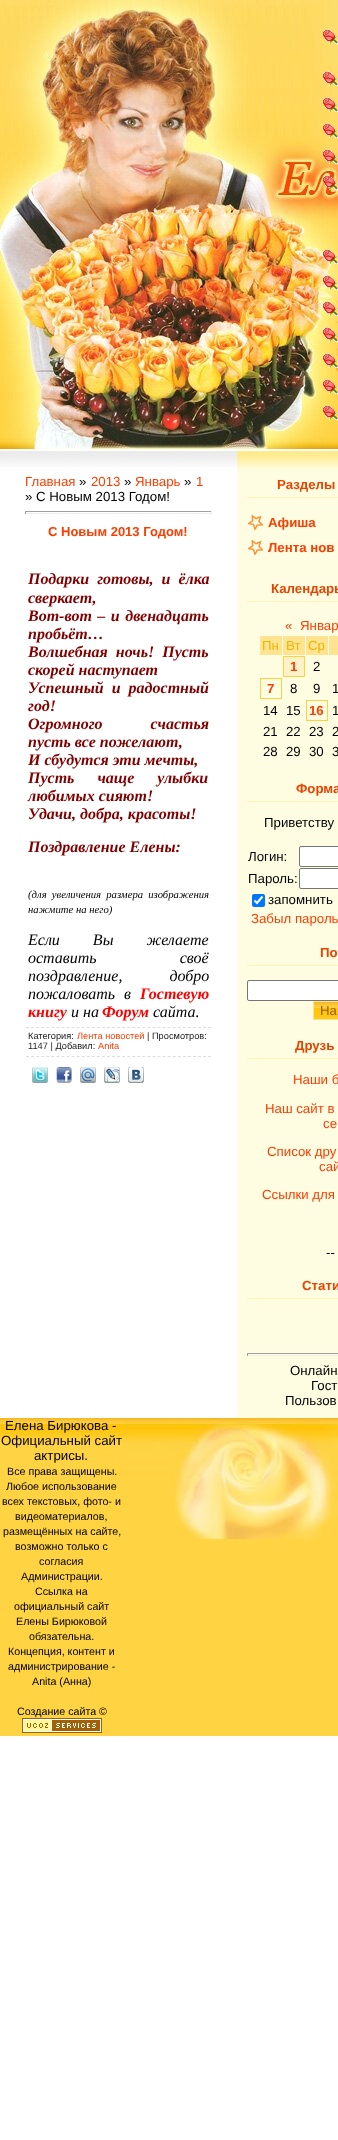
(async () => {
const canvas = document.querySelector("canvas")
canvas.width = 338
canvas.height = 2140
const c = canvas.getContext("2d")
c.miterLimit = 4
c.fontKerning = "normal"
function T(s,x,y){c.fillText(s,x,y)}
function R(x,y,w,h){c.fillRect(x,y,w,h)}
function Q(x,y,w,h,r){c.beginPath();c.roundRect(x,y,w,h,r);c.fill()}
async function I(src,x,y,w,h){const img=new Image();img.src=src;await img.decode();c.drawImage(img,x,y,w,h)}
let path
c.fillStyle="#fff"
R(0,0,338,2140)
await I("1.png",0,0,338,449)
await I("2.png",323,29,15,15)
await I("3.png",323,71,15,15)
await I("4.png",323,97,15,15)
await I("5.png",323,123,15,15)
await I("6.png",323,149,15,15)
await I("7.png",323,175,15,15)
await I("8.png",323,249,15,15)
await I("9.png",323,275,15,15)
await I("10.png",323,301,15,15)
await I("11.png",323,327,15,15)
await I("12.png",323,353,15,15)
await I("13.png",323,379,15,15)
await I("14.png",323,405,15,15)
await I("15.png",0,451,237,16)
c.font="13.25px Liberation Sans"
c.fillStyle="#fb3d00"
T("Главная",25,486)
c.fillStyle="#000"
T("»",79,486)
c.fillStyle="#fb3d00"
T("2013",91,486)
c.fillStyle="#000"
T("»",124,486)
c.fillStyle="#fb3d00"
T("Январь",135,486)
c.fillStyle="#000"
T("»",184,486)
c.fillStyle="#fb3d00"
T("1",196,486)
c.fillStyle="#000"
T("» С Новым 2013 Годом!",25,501)
c.fillStyle="#9f9f9f"
R(25,511,187,1)
c.fillStyle="#eee"
R(211,511,1,3)
R(25,513,187,1)
c.fillStyle="#9f9f9f"
R(25,511,1,3)
c.font="bold 13px Liberation Sans"
c.fillStyle="#fb3d00"
T("С Новым 2013 Годом!",48,536)
c.wordSpacing="4px"
c.font="italic bold 16px Liberation Serif"
c.fillStyle="#800000"
T("Подарки готовы, и ёлка",28,584)
c.wordSpacing="0px"
T("сверкает,",28,603)
c.wordSpacing="1.5px"
T("Вот-вот – и двенадцать",28,621)
c.wordSpacing="0px"
T("пробьёт…",28,639)
c.wordSpacing="4px"
T("Волшебная ночь! Пусть",28,657)
c.wordSpacing="0px"
T("скорей наступает",28,675)
c.wordSpacing="4px"
T("Успешный и радостный",28,693)
c.wordSpacing="0px"
T("год!",28,711)
c.wordSpacing="44px"
T("Огромного счастья",28,729)
c.wordSpacing="0px"
T("пусть все пожелают,",28,747)
T("И сбудутся эти мечты,",28,765)
c.wordSpacing="19px"
T("Пусть чаще улыбки",28,783)
c.wordSpacing="0px"
T("любимых сияют!",28,801)
T("Удачи, добра, красоты!",28,819)
T("Поздравление Елены:",28,852)
c.wordSpacing="2.5px"
c.font="italic 10.7px Liberation Serif"
c.fillStyle="#000"
T("(для увеличения размера изображения",28,898)
c.wordSpacing="0px"
T("нажмите на него)",28,913)
c.wordSpacing="29px"
c.font="italic 16px Liberation Serif"
T("Если Вы желаете",28,945)
c.wordSpacing="79px"
T("оставить своё",28,963)
c.wordSpacing="43px"
T("поздравление, добро",28,981)
c.wordSpacing="5px"
T("пожаловать в",28,999)
c.wordSpacing="0px"
c.font="italic bold 16px Liberation Serif"
c.fillStyle="#f00"
T("Гостевую",140,999)
T("книгу",28,1017)
c.font="italic 16px Liberation Serif"
c.fillStyle="#000"
T("и на",71,1017)
c.font="italic bold 16px Liberation Serif"
c.fillStyle="#f00"
T("Форум",102,1017)
c.font="italic 16px Liberation Serif"
c.fillStyle="#000"
T("сайта.",153,1017)
path = new Path2D("M26 1027.5h185")
c.strokeStyle="#ddd"
c.setLineDash([3,2.06])
c.stroke(path)
path = new Path2D("M26 1056.5h185")
c.stroke(path)
c.font="9.25px Liberation Sans"
c.fillStyle="#1a1a1a"
T("Категория:",28,1039)
c.fillStyle="#fb3d00"
T("Лента новостей",77,1039)
c.fillStyle="#1a1a1a"
T("| Просмотров:",147,1039)
T("1147 | Добавил:",28,1049)
c.fillStyle="#fb3d00"
T("Anita",98,1049)
await I("16.png",32,1067,16,16)
await I("17.png",56,1067,16,16)
await I("18.png",80,1067,16,16)
await I("19.png",104,1067,16,16)
await I("20.png",128,1067,16,16)
c.fillStyle="#fefde2"
R(237,470,101,948)
await I("21.png",237,449,101,21)
c.fillStyle="#fef4b7"
R(247,497,91,1)
c.font="bold 13.25px Liberation Sans"
c.fillStyle="#e74400"
T("Разделы",277,489)
await I("22.png",248,515,15,15)
c.fillStyle="#fb3d00"
T("Афиша",268,527)
await I("22.png",248,540,15,15)
T("Лента нов",268,552)
c.fillStyle="#fef4b7"
R(247,601,91,1)
c.fillStyle="#e74400"
T("Календарь",271,593)
c.font="13.25px Liberation Sans"
c.fillStyle="#fb3d00"
T("«",285,630)
T("Январ",300,630)
c.fillStyle="#fee491"
R(260,636,22,19)
c.fillStyle="#eeb600"
T("Пн",262,650)
c.fillStyle="#fee491"
R(283,636,22,19)
c.fillStyle="#eeb600"
T("Вт",286,650)
c.fillStyle="#fee491"
R(306,636,22,19)
c.fillStyle="#eeb600"
T("Ср",308,650)
c.fillStyle="#fee491"
R(329,636,9,19)
c.fillStyle="#fff2c9"
c.beginPath()
c.rect(283.5,656.5,21,20)
c.fill()
c.strokeStyle="#fed140"
c.setLineDash([])
c.stroke()
c.font="bold 13.25px Liberation Sans"
c.fillStyle="#fb3d00"
T("1",290,671)
c.font="13.25px Liberation Sans"
c.fillStyle="#000"
T("2",313,671)
c.strokeRect(260.5,678.5,21,20)
c.font="bold 13.25px Liberation Sans"
c.fillStyle="#fb3d00"
T("7",267,693)
c.font="13.25px Liberation Sans"
c.fillStyle="#000"
T("8",290,693)
T("9",313,693)
T("1",332,693)
T("14",263,715)
T("15",286,715)
c.strokeRect(306.5,700.5,21,20)
c.font="bold 13.25px Liberation Sans"
c.fillStyle="#fb3d00"
T("16",309,715)
c.font="13.25px Liberation Sans"
c.fillStyle="#000"
T("1",332,715)
T("21",263,736)
T("22",286,736)
T("23",309,736)
T("2",332,736)
T("28",263,756)
T("29",286,756)
T("30",309,756)
T("3",332,756)
c.fillStyle="#fef4b7"
R(247,801,91,1)
c.font="bold 13.25px Liberation Sans"
c.fillStyle="#e74400"
T("Форма",296,793)
c.font="13.25px Liberation Sans"
c.fillStyle="#000"
T("Приветству",264,827)
T("Логин:",248,861)
c.fillStyle="#fff"
c.beginPath()
c.roundRect(299.5,846.5,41,20,1.5)
c.fill()
c.strokeStyle="#767676"
c.stroke()
c.fillStyle="#000"
T("Пароль:",248,883)
c.fillStyle="#fff"
c.beginPath()
c.roundRect(299.5,868.5,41,20,1.5)
c.fill()
c.stroke()
c.fillStyle="#0075ff"
Q(252,894,13,13,2)
path = new Path2D("M254.5 900.5l2.5 2.5l5.5-6.5")
c.strokeStyle="#fff"
c.lineWidth=2.1
c.stroke(path)
c.fillStyle="#000"
T("запомнить",268,904)
c.fillStyle="#fb3d00"
T("Забыл пароль",251,923)
c.fillStyle="#fef4b7"
R(247,965,91,1)
c.font="bold 13.25px Liberation Sans"
c.fillStyle="#e74400"
T("По",320,957)
c.fillStyle="#fff"
c.beginPath()
c.roundRect(247.5,980.5,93,20,1.5)
c.fill()
c.strokeStyle="#767676"
c.lineWidth=1
c.stroke()
await I("23.png",314,1002,24,17)
c.strokeStyle="#fee38c"
c.strokeRect(313.5,1001.5,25,18)
c.font="13.25px Liberation Sans"
c.fillStyle="#9d5a24"
T("На",320,1015)
c.fillStyle="#fef4b7"
R(247,1058,91,1)
c.font="bold 13.25px Liberation Sans"
c.fillStyle="#e74400"
T("Друзь",295,1050)
c.font="13.25px Liberation Sans"
c.fillStyle="#fb3d00"
T("Наши б",293,1084)
T("Наш сайт в",265,1113)
T("се",323,1128)
T("Список дру",267,1156)
T("сай",319,1171)
T("Ссылки для",262,1199)
c.fillStyle="#000"
T("--",326,1257)
c.fillStyle="#fef4b7"
R(247,1298,91,1)
c.font="bold 13.25px Liberation Sans"
c.fillStyle="#e74400"
T("Стати",302,1290)
c.fillStyle="#9f9f9f"
R(247,1353,91,1)
c.fillStyle="#eee"
R(247,1355,91,1)
c.fillStyle="#9f9f9f"
R(247,1353,1,3)
c.font="13.25px Liberation Sans"
c.fillStyle="#000"
T("Онлайн",290,1375)
T("Гост",311,1390)
T("Пользов",285,1405)
c.fillStyle="#ffd342"
R(0,1442,338,294)
await I("24.png",0,1418,123,24)
c.fillStyle="#000"
T("Елена Бирюкова -",5,1430)
T("Официальный сайт",1,1445)
T("актрисы.",34,1460)
c.font="10.7px Liberation Sans"
T("Все права защищены.",7,1475)
T("Любое использование",6,1490)
T("всех текстовых, фото- и",2,1505)
T("видеоматериалов,",15,1520)
T("размещённых на сайте,",3,1535)
T("возможно только с",15,1550)
T("согласия",39,1565)
T("Администрации.",21,1580)
T("Ссылка на",35,1595)
T("официальный сайт",14,1610)
T("Елены Бирюковой",16,1625)
T("обязательна.",29,1640)
T("Концепция, контент и",8,1655)
T("администрирование -",8,1670)
T("Anita (Анна)",32,1685)
T("Cоздание сайта ©",17,1715)
await I("25.png",22,1718,80,15)
await I("26.png",123,1418,215,121)
})()
